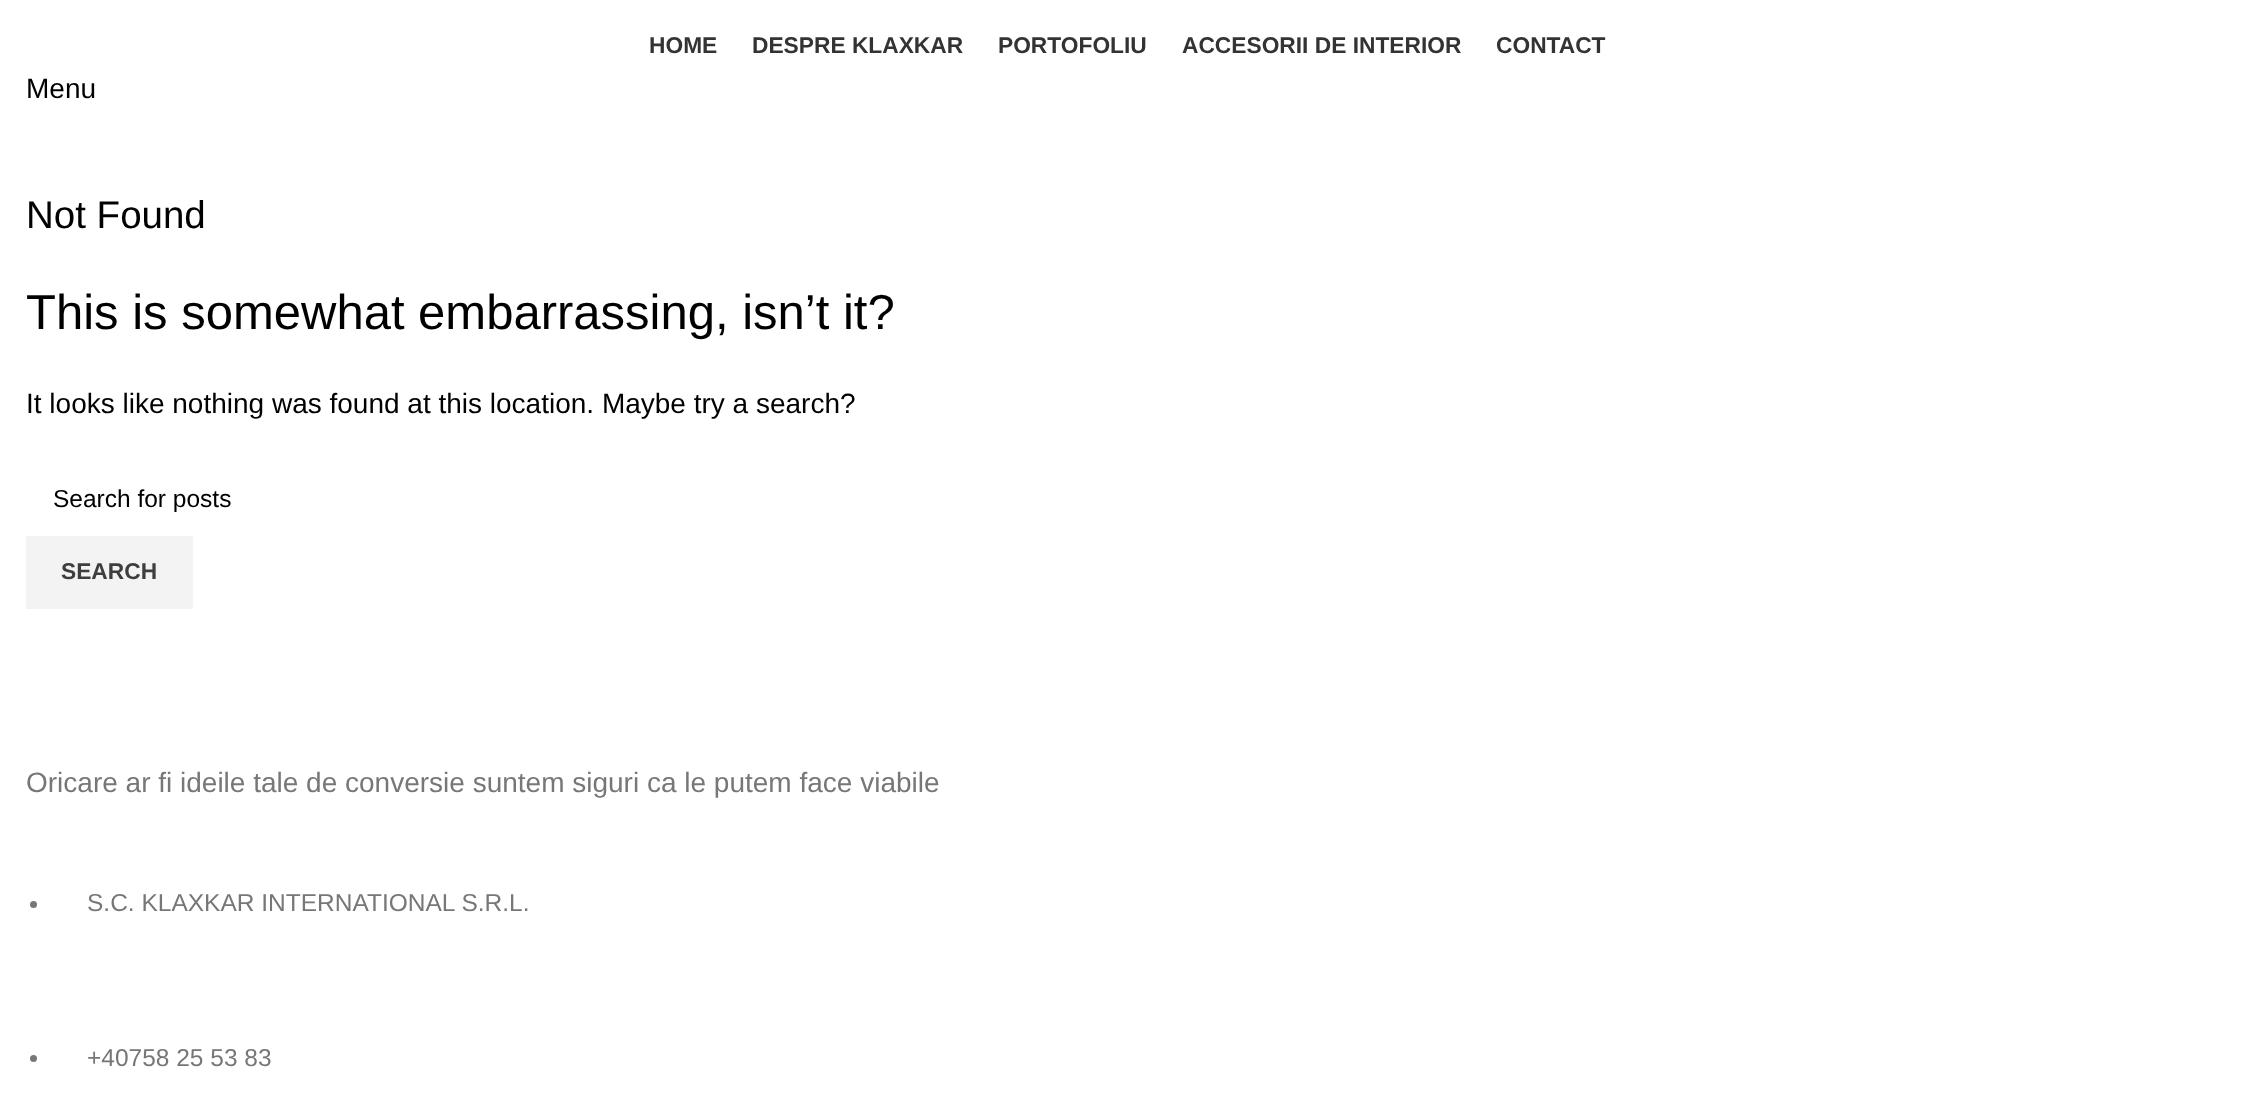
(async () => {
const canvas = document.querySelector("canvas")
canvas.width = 2253
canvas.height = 1119
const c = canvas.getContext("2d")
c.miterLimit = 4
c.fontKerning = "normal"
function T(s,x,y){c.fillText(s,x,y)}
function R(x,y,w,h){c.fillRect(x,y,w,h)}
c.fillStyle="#fff"
R(0,0,2253,1119)
c.font="bold 22.75px Liberation Sans"
c.fillStyle="#333"
T("HOME",649,53)
T("DESPRE KLAXKAR",752,53)
T("PORTOFOLIU",998,53)
T("ACCESORII DE INTERIOR",1182,53)
T("CONTACT",1496,53)
c.font="28px Liberation Sans"
c.fillStyle="#000"
T("Menu",26,98)
c.font="38.5px Liberation Sans"
T("Not Found",26,228)
c.font="49px Liberation Sans"
T("This is somewhat embarrassing, isn’t it?",26,329)
c.font="28px Liberation Sans"
T("It looks like nothing was found at this location. Maybe try a search?",26,413)
c.font="24.5px Liberation Sans"
T("Search for posts",53,507)
c.fillStyle="#f3f3f3"
R(26,536,167,73)
c.font="bold 22.75px Liberation Sans"
c.fillStyle="#3e3e3e"
T("SEARCH",61,579)
c.font="28px Liberation Sans"
c.fillStyle="#777"
T("Oricare ar fi ideile tale de conversie suntem siguri ca le putem face viabile",26,792)
c.beginPath()
c.arc(33.5,904.5,3.5,0,7)
c.fill()
c.font="24.5px Liberation Sans"
T("S.C. KLAXKAR INTERNATIONAL S.R.L.",87,911)
c.beginPath()
c.arc(33.5,1058.5,3.5,0,7)
c.fill()
T("+40758 25 53 83",87,1066)
})()
